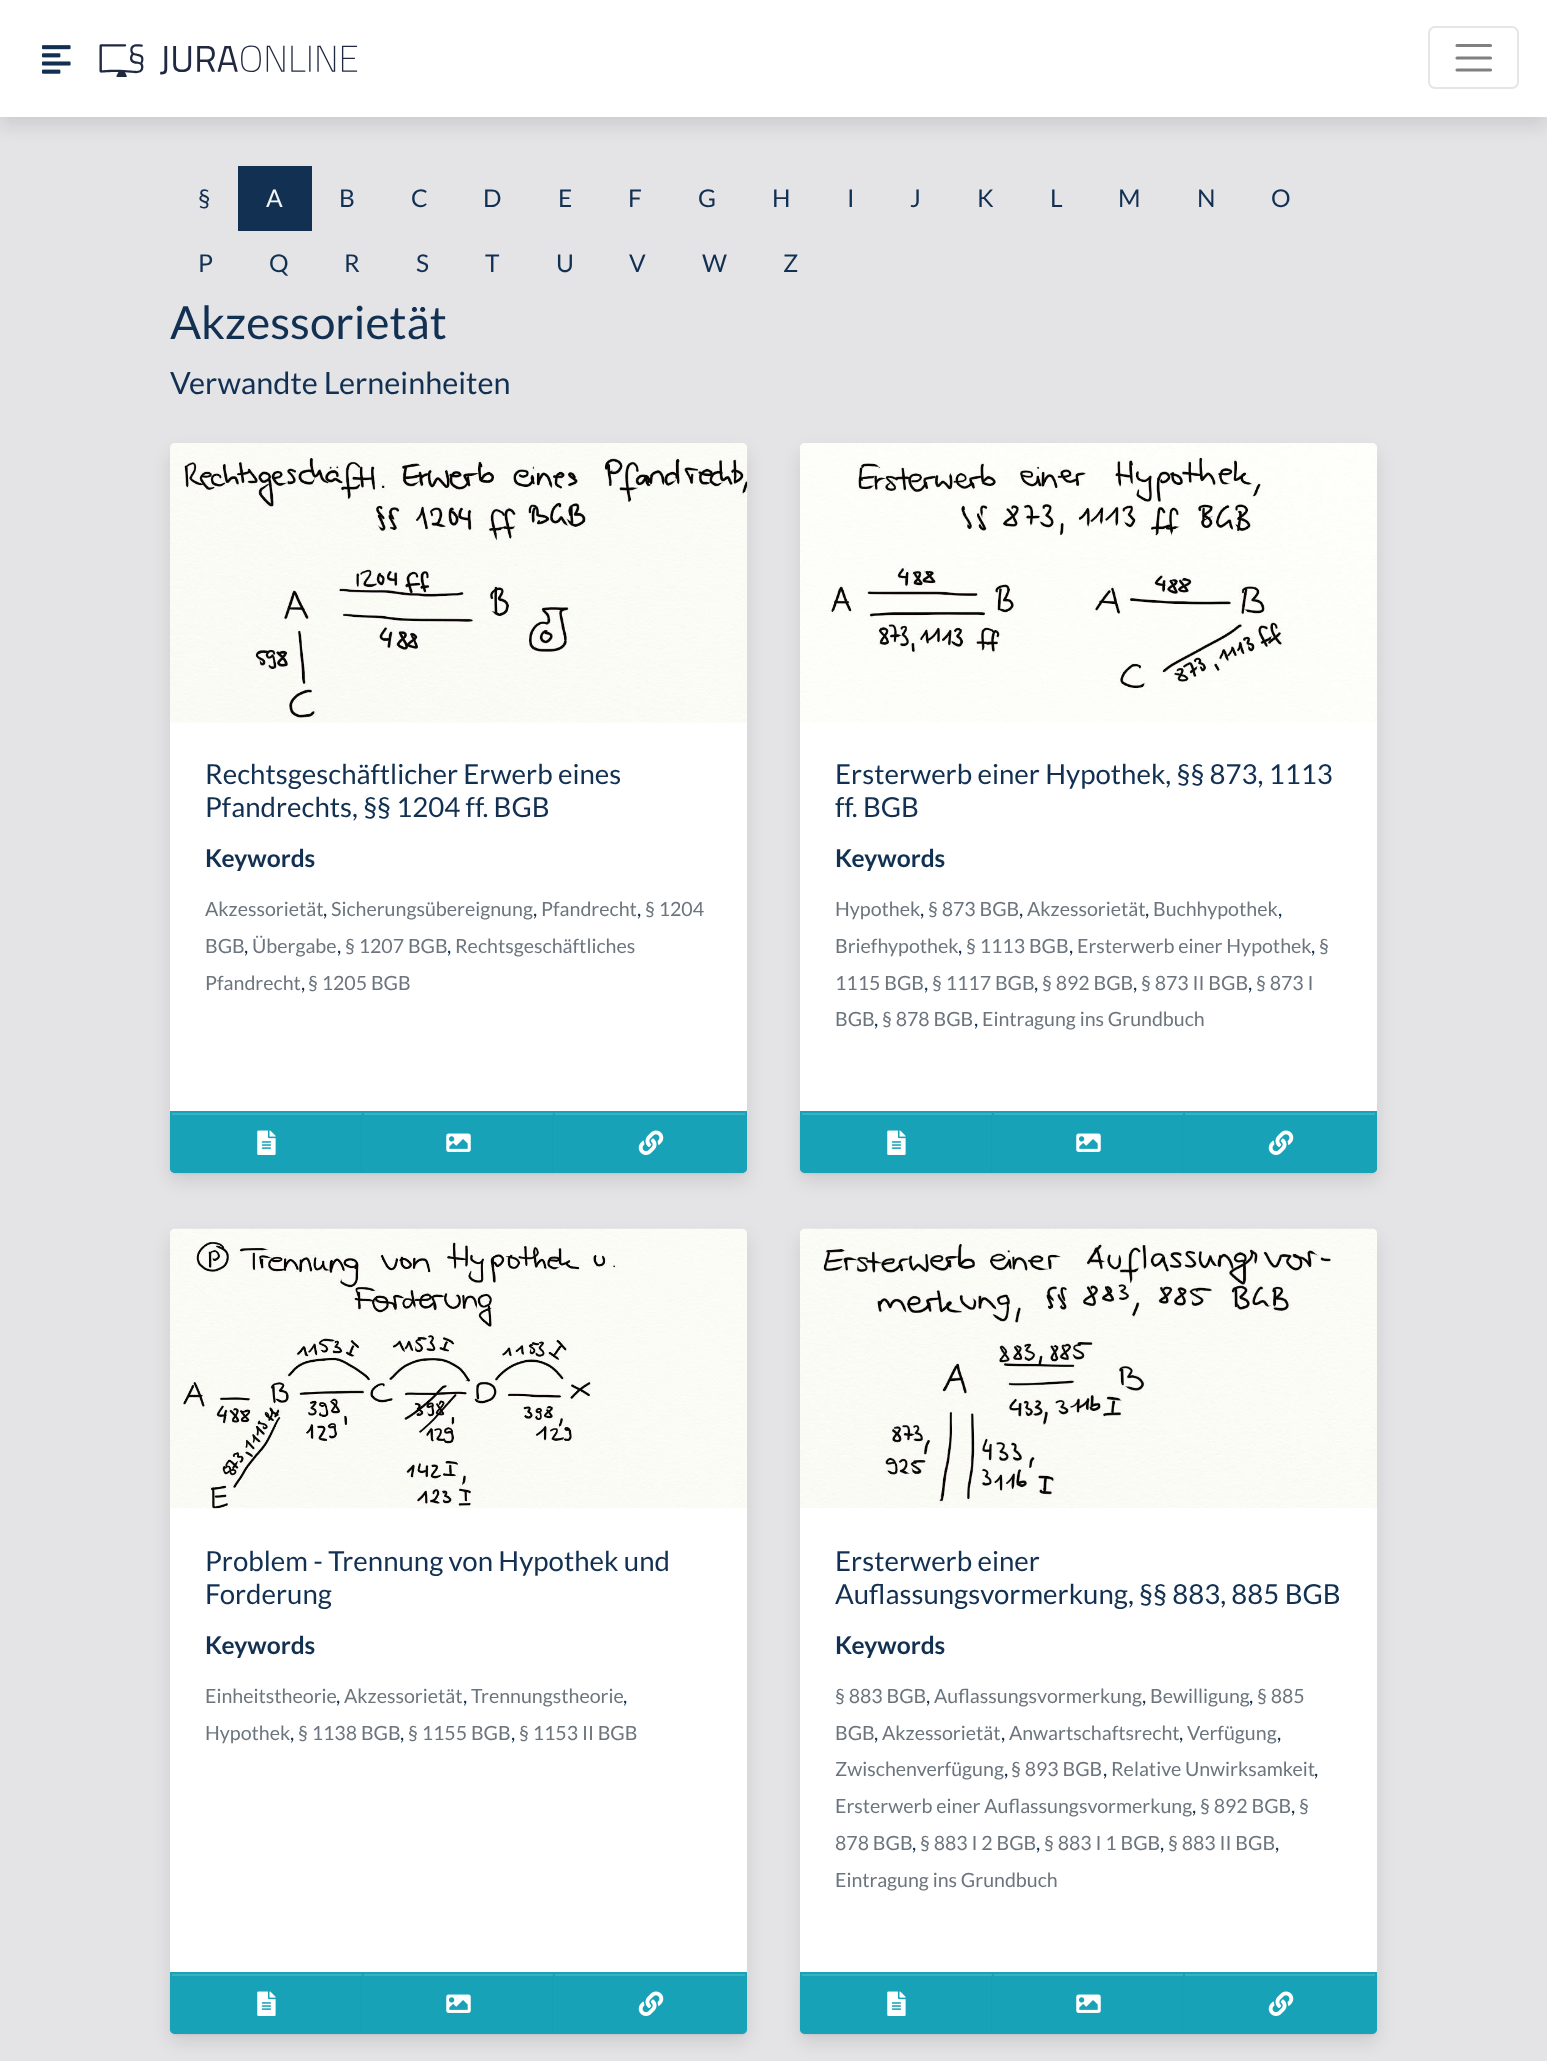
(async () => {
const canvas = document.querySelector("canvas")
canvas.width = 1547
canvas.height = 2061
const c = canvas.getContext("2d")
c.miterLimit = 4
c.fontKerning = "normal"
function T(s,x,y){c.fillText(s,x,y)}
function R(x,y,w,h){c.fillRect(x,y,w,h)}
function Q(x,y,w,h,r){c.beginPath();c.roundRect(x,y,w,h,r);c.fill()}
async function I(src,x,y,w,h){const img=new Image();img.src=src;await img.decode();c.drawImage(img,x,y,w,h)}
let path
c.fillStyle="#e4e4e7"
R(0,0,1547,2061)
c.fillStyle="#0000001a"
c.filter="blur(9px)"
c.beginPath()
c.rect(0,9,1547,117)
c.fill()
c.filter="none"
c.fillStyle="#fff"
R(0,0,1547,117)
await I("1.png",42,45,29,29)
await I("2.png",99,44,259,33)
c.beginPath()
c.roundRect(1429,27,89,61,6)
c.strokeStyle="#e6e6e6"
c.lineWidth=2
c.stroke()
path = new Path2D("M1457 45.5h33.5m-33.5 12.5h33.5m-33.5 12h33.5")
c.strokeStyle="#808080"
c.lineWidth=3.1
c.lineCap="round"
c.stroke(path)
c.font="24.5px Lato"
c.fillStyle="#123052"
T("§",198,207)
R(238,166,74,65)
c.fillStyle="#f2f4f6"
T("A",266,207)
c.fillStyle="#123052"
T("B",339,207)
T("C",411,207)
T("D",483,207)
T("E",558,207)
T("F",628,207)
T("G",698,207)
T("H",772,207)
T("I",847,207)
T("J",910,207)
T("K",977,207)
T("L",1050,207)
T("M",1118,207)
T("N",1197,207)
T("O",1271,207)
T("P",198,272)
T("Q",269,272)
T("R",344,272)
T("S",416,272)
T("T",485,272)
T("U",556,272)
T("V",629,272)
T("W",702,272)
T("Z",783,272)
c.font="45.75px Lato"
T("Akzessorietät",170,339)
c.font="30.6px Lato"
T("Verwandte Lerneinheiten",170,394)
c.fillStyle="#0000001a"
c.filter="blur(9px)"
c.beginPath()
c.roundRect(170,452,577,729,7)
c.fill()
c.filter="none"
c.fillStyle="#fff"
Q(170,443,577,730,7)
await I("3.png",170,443,578,280)
c.font="27.6px Lato"
c.fillStyle="#123052"
T("Rechtsgeschäftlicher Erwerb eines",205,784)
T("Pfandrechts, §§ 1204 ff. BGB",205,817)
c.font="bold 24.5px Lato"
T("Keywords",205,867)
c.font="19.6px Lato"
c.fillStyle="#6c757d"
T("Akzessorietät",205,916)
c.fillStyle="#123052"
T(",",323,916)
c.fillStyle="#6c757d"
T("Sicherungsübereignung",331,916)
c.fillStyle="#123052"
T(",",533,916)
c.fillStyle="#6c757d"
T("Pfandrecht",541,916)
c.fillStyle="#123052"
T(",",637,916)
c.fillStyle="#6c757d"
T("§ 1204",645,916)
T("BGB",205,953)
c.fillStyle="#123052"
T(",",244,953)
c.fillStyle="#6c757d"
T("Übergabe",252,953)
c.fillStyle="#123052"
T(",",337,953)
c.fillStyle="#6c757d"
T("§ 1207 BGB",345,953)
c.fillStyle="#123052"
T(",",447,953)
c.fillStyle="#6c757d"
T("Rechtsgeschäftliches",455,953)
T("Pfandrecht",205,990)
c.fillStyle="#123052"
T(",",301,990)
c.fillStyle="#6c757d"
T("§ 1205 BGB",308,990)
c.fillStyle="#00000012"
c.filter="blur(1px)"
c.beginPath()
c.roundRect(170,1113,194,61,5)
c.fill()
c.filter="none"
c.fillStyle="#17a2b8"
c.beginPath()
c.roundRect(170,1111,194,62,[0,0,0,5])
c.fill()
c.fillStyle="#3ab0c3"
R(172,1113,190,2)
c.beginPath()
c.roundRect(171,1112,192,60,[0,0,0,4])
c.strokeStyle="#17a2b8"
c.lineWidth=2
c.stroke()
await I("4.png",257,1130,19,25)
c.fillStyle="#00000012"
c.filter="blur(1px)"
c.beginPath()
c.rect(362,1113,193,61)
c.fill()
c.filter="none"
c.fillStyle="#17a2b8"
R(362,1111,191,62)
c.fillStyle="#3ab0c3"
R(364,1113,189,2)
await I("5.png",446,1133,25,19)
c.fillStyle="#00000012"
c.filter="blur(1px)"
c.beginPath()
c.roundRect(553,1113,194,61,5)
c.fill()
c.filter="none"
c.fillStyle="#17a2b8"
c.beginPath()
c.roundRect(553,1111,194,62,[0,0,5,0])
c.fill()
c.fillStyle="#3ab0c3"
R(555,1113,191,2)
c.beginPath()
c.roundRect(554,1112,192,60,[0,0,4,0])
c.stroke()
await I("6.png",638,1130,26,25)
c.fillStyle="#0000001a"
c.filter="blur(9px)"
c.beginPath()
c.roundRect(800,452,577,729,7)
c.fill()
c.filter="none"
c.fillStyle="#fff"
Q(800,443,577,730,7)
await I("7.png",800,443,577,280)
c.font="27.6px Lato"
c.fillStyle="#123052"
T("Ersterwerb einer Hypothek, §§ 873, 1113",835,784)
T("ff. BGB",835,817)
c.font="bold 24.5px Lato"
T("Keywords",835,867)
c.font="19.6px Lato"
c.fillStyle="#6c757d"
T("Hypothek",835,916)
c.fillStyle="#123052"
T(",",920,916)
c.fillStyle="#6c757d"
T("§ 873 BGB",928,916)
c.fillStyle="#123052"
T(",",1019,916)
c.fillStyle="#6c757d"
T("Akzessorietät",1027,916)
c.fillStyle="#123052"
T(",",1145,916)
c.fillStyle="#6c757d"
T("Buchhypothek",1153,916)
c.fillStyle="#123052"
T(",",1278,916)
c.fillStyle="#6c757d"
T("Briefhypothek",835,953)
c.fillStyle="#123052"
T(",",958,953)
c.fillStyle="#6c757d"
T("§ 1113 BGB",966,953)
c.fillStyle="#123052"
T(",",1069,953)
c.fillStyle="#6c757d"
T("Ersterwerb einer Hypothek",1077,953)
c.fillStyle="#123052"
T(",",1311,953)
c.fillStyle="#6c757d"
T("§",1319,953)
T("1115 BGB",835,990)
c.fillStyle="#123052"
T(",",924,990)
c.fillStyle="#6c757d"
T("§ 1117 BGB",932,990)
c.fillStyle="#123052"
T(",",1034,990)
c.fillStyle="#6c757d"
T("§ 892 BGB",1042,990)
c.fillStyle="#123052"
T(",",1133,990)
c.fillStyle="#6c757d"
T("§ 873 II BGB",1141,990)
c.fillStyle="#123052"
T(",",1248,990)
c.fillStyle="#6c757d"
T("§ 873 I",1256,990)
T("BGB",835,1026)
c.fillStyle="#123052"
T(",",874,1026)
c.fillStyle="#6c757d"
T("§ 878 BGB",882,1026)
c.fillStyle="#123052"
T(",",974,1026)
c.fillStyle="#6c757d"
T("Eintragung ins Grundbuch",982,1026)
c.fillStyle="#00000012"
c.filter="blur(1px)"
c.beginPath()
c.roundRect(800,1113,194,61,5)
c.fill()
c.filter="none"
c.fillStyle="#17a2b8"
c.beginPath()
c.roundRect(800,1111,194,62,[0,0,0,5])
c.fill()
c.fillStyle="#3ab0c3"
R(802,1113,190,2)
c.beginPath()
c.roundRect(801,1112,192,60,[0,0,0,4])
c.stroke()
await I("4.png",887,1130,19,25)
c.fillStyle="#00000012"
c.filter="blur(1px)"
c.beginPath()
c.rect(992,1113,193,61)
c.fill()
c.filter="none"
c.fillStyle="#17a2b8"
R(992,1111,191,62)
c.fillStyle="#3ab0c3"
R(994,1113,189,2)
await I("5.png",1076,1133,25,19)
c.fillStyle="#00000012"
c.filter="blur(1px)"
c.beginPath()
c.roundRect(1183,1113,194,61,5)
c.fill()
c.filter="none"
c.fillStyle="#17a2b8"
c.beginPath()
c.roundRect(1183,1111,194,62,[0,0,5,0])
c.fill()
c.fillStyle="#3ab0c3"
R(1185,1113,191,2)
c.beginPath()
c.roundRect(1184,1112,192,60,[0,0,4,0])
c.stroke()
await I("6.png",1268,1130,26,25)
c.fillStyle="#0000001a"
c.filter="blur(9px)"
c.beginPath()
c.roundRect(170,1237,577,805,7)
c.fill()
c.filter="none"
c.fillStyle="#fff"
Q(170,1229,577,805,7)
await I("8.png",170,1228,577,281)
c.font="27.6px Lato"
c.fillStyle="#123052"
T("Problem - Trennung von Hypothek und",205,1571)
T("Forderung",205,1604)
c.font="bold 24.5px Lato"
T("Keywords",205,1654)
c.font="19.6px Lato"
c.fillStyle="#6c757d"
T("Einheitstheorie",205,1703)
c.fillStyle="#123052"
T(",",336,1703)
c.fillStyle="#6c757d"
T("Akzessorietät",344,1703)
c.fillStyle="#123052"
T(",",463,1703)
c.fillStyle="#6c757d"
T("Trennungstheorie",471,1703)
c.fillStyle="#123052"
T(",",623,1703)
c.fillStyle="#6c757d"
T("Hypothek",205,1740)
c.fillStyle="#123052"
T(",",290,1740)
c.fillStyle="#6c757d"
T("§ 1138 BGB",298,1740)
c.fillStyle="#123052"
T(",",400,1740)
c.fillStyle="#6c757d"
T("§ 1155 BGB",408,1740)
c.fillStyle="#123052"
T(",",511,1740)
c.fillStyle="#6c757d"
T("§ 1153 II BGB",519,1740)
c.fillStyle="#00000012"
c.filter="blur(1px)"
c.beginPath()
c.roundRect(170,1974,194,61,5)
c.fill()
c.filter="none"
c.fillStyle="#17a2b8"
c.beginPath()
c.roundRect(170,1972,194,62,[0,0,0,5])
c.fill()
c.fillStyle="#3ab0c3"
R(172,1974,190,2)
c.beginPath()
c.roundRect(171,1973,192,60,[0,0,0,4])
c.stroke()
await I("4.png",257,1991,19,25)
c.fillStyle="#00000012"
c.filter="blur(1px)"
c.beginPath()
c.rect(362,1974,193,61)
c.fill()
c.filter="none"
c.fillStyle="#17a2b8"
R(362,1972,191,62)
c.fillStyle="#3ab0c3"
R(364,1974,189,2)
await I("5.png",446,1994,25,19)
c.fillStyle="#00000012"
c.filter="blur(1px)"
c.beginPath()
c.roundRect(553,1974,194,61,5)
c.fill()
c.filter="none"
c.fillStyle="#17a2b8"
c.beginPath()
c.roundRect(553,1972,194,62,[0,0,5,0])
c.fill()
c.fillStyle="#3ab0c3"
R(555,1974,191,2)
c.beginPath()
c.roundRect(554,1973,192,60,[0,0,4,0])
c.stroke()
await I("6.png",638,1991,26,25)
c.fillStyle="#0000001a"
c.filter="blur(9px)"
c.beginPath()
c.roundRect(800,1237,577,805,7)
c.fill()
c.filter="none"
c.fillStyle="#fff"
Q(800,1229,577,805,7)
await I("9.png",800,1228,577,280)
c.font="27.6px Lato"
c.fillStyle="#123052"
T("Ersterwerb einer",835,1571)
T("Auflassungsvormerkung, §§ 883, 885 BGB",835,1604)
c.font="bold 24.5px Lato"
T("Keywords",835,1654)
c.font="19.6px Lato"
c.fillStyle="#6c757d"
T("§ 883 BGB",835,1703)
c.fillStyle="#123052"
T(",",926,1703)
c.fillStyle="#6c757d"
T("Auflassungsvormerkung",934,1703)
c.fillStyle="#123052"
T(",",1142,1703)
c.fillStyle="#6c757d"
T("Bewilligung",1150,1703)
c.fillStyle="#123052"
T(",",1249,1703)
c.fillStyle="#6c757d"
T("§ 885",1257,1703)
T("BGB",835,1740)
c.fillStyle="#123052"
T(",",874,1740)
c.fillStyle="#6c757d"
T("Akzessorietät",882,1740)
c.fillStyle="#123052"
T(",",1001,1740)
c.fillStyle="#6c757d"
T("Anwartschaftsrecht",1009,1740)
c.fillStyle="#123052"
T(",",1179,1740)
c.fillStyle="#6c757d"
T("Verfügung",1187,1740)
c.fillStyle="#123052"
T(",",1277,1740)
c.fillStyle="#6c757d"
T("Zwischenverfügung",835,1776)
c.fillStyle="#123052"
T(",",1004,1776)
c.fillStyle="#6c757d"
T("§ 893 BGB",1011,1776)
c.fillStyle="#123052"
T(",",1103,1776)
c.fillStyle="#6c757d"
T("Relative Unwirksamkeit",1111,1776)
c.fillStyle="#123052"
T(",",1314,1776)
c.fillStyle="#6c757d"
T("Ersterwerb einer Auflassungsvormerkung",835,1813)
c.fillStyle="#123052"
T(",",1192,1813)
c.fillStyle="#6c757d"
T("§ 892 BGB",1200,1813)
c.fillStyle="#123052"
T(",",1291,1813)
c.fillStyle="#6c757d"
T("§",1299,1813)
T("878 BGB",835,1850)
c.fillStyle="#123052"
T(",",912,1850)
c.fillStyle="#6c757d"
T("§ 883 I 2 BGB",920,1850)
c.fillStyle="#123052"
T(",",1036,1850)
c.fillStyle="#6c757d"
T("§ 883 I 1 BGB",1044,1850)
c.fillStyle="#123052"
T(",",1160,1850)
c.fillStyle="#6c757d"
T("§ 883 II BGB",1168,1850)
c.fillStyle="#123052"
T(",",1275,1850)
c.fillStyle="#6c757d"
T("Eintragung ins Grundbuch",835,1887)
c.fillStyle="#00000012"
c.filter="blur(1px)"
c.beginPath()
c.roundRect(800,1974,194,61,5)
c.fill()
c.filter="none"
c.fillStyle="#17a2b8"
c.beginPath()
c.roundRect(800,1972,194,62,[0,0,0,5])
c.fill()
c.fillStyle="#3ab0c3"
R(802,1974,190,2)
c.beginPath()
c.roundRect(801,1973,192,60,[0,0,0,4])
c.stroke()
await I("4.png",887,1991,19,25)
c.fillStyle="#00000012"
c.filter="blur(1px)"
c.beginPath()
c.rect(992,1974,193,61)
c.fill()
c.filter="none"
c.fillStyle="#17a2b8"
R(992,1972,191,62)
c.fillStyle="#3ab0c3"
R(994,1974,189,2)
await I("5.png",1076,1994,25,19)
c.fillStyle="#00000012"
c.filter="blur(1px)"
c.beginPath()
c.roundRect(1183,1974,194,61,5)
c.fill()
c.filter="none"
c.fillStyle="#17a2b8"
c.beginPath()
c.roundRect(1183,1972,194,62,[0,0,5,0])
c.fill()
c.fillStyle="#3ab0c3"
R(1185,1974,191,2)
c.beginPath()
c.roundRect(1184,1973,192,60,[0,0,4,0])
c.stroke()
await I("6.png",1268,1991,26,25)
})()
